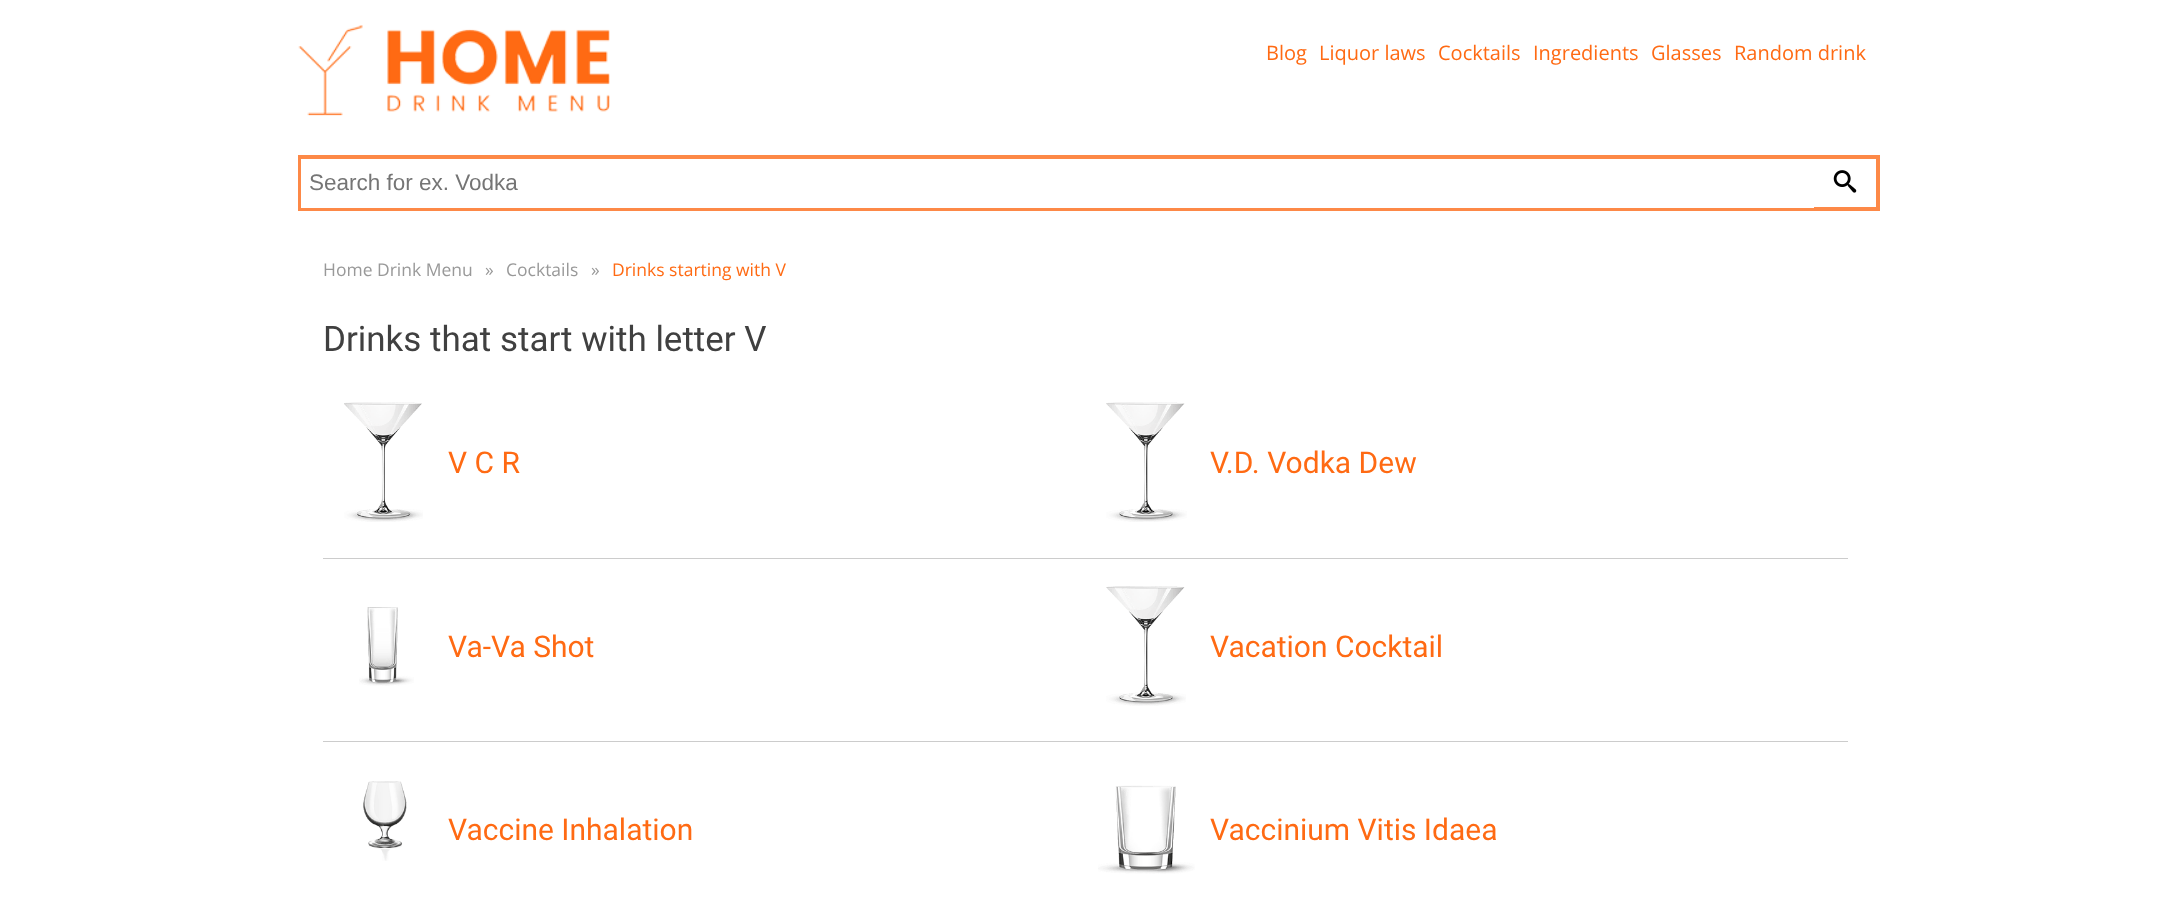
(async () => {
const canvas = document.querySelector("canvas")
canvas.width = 2169
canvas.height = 913
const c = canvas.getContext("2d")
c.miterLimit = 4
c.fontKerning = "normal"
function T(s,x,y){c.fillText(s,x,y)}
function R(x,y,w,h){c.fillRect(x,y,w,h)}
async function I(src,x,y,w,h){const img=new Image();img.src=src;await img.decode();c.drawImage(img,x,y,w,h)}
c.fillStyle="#fff"
R(0,0,2169,913)
await I("1.png",298,25,312,91)
c.font="20px Open Sans"
c.fillStyle="#ff6a13"
T("Blog",1266,60)
T("Liquor laws",1319,60)
T("Cocktails",1438,60)
T("Ingredients",1533,60)
T("Glasses",1651,60)
T("Random drink",1734,60)
c.strokeStyle="#fd8947"
c.lineWidth=4
c.strokeRect(300,157,1578,52)
c.fillStyle="#fff"
R(301,159,1513,49)
c.font="22.5px Liberation Sans"
c.fillStyle="#757575"
T("Search for ex. Vodka",309,190)
await I("2.png",1833,170,24,23)
c.font="17.5px Open Sans"
c.fillStyle="#999"
T("Home Drink Menu",323,276)
T("»",485,276)
T("Cocktails",506,276)
T("»",591,276)
c.fillStyle="#ff6a13"
T("Drinks starting with V",612,276)
c.font="35px Roboto"
c.fillStyle="#404040"
T("Drinks that start with letter V",323,351)
c.fillStyle="#ccc"
R(323,558,1525,1)
await I("3.png",344,402,79,120)
c.font="30px Roboto"
c.fillStyle="#ff6a13"
T("V C R",448,473)
await I("4.png",1106,402,81,120)
T("V.D. Vodka Dew",1210,473)
c.fillStyle="#ccc"
R(323,741,1525,1)
await I("5.png",359,607,55,79)
c.fillStyle="#ff6a13"
T("Va-Va Shot",448,657)
await I("6.png",1106,586,80,120)
T("Vacation Cocktail",1210,657)
await I("7.png",363,781,44,80)
T("Vaccine Inhalation",448,840)
await I("8.png",1098,785,97,89)
T("Vaccinium Vitis Idaea",1210,840)
})()
